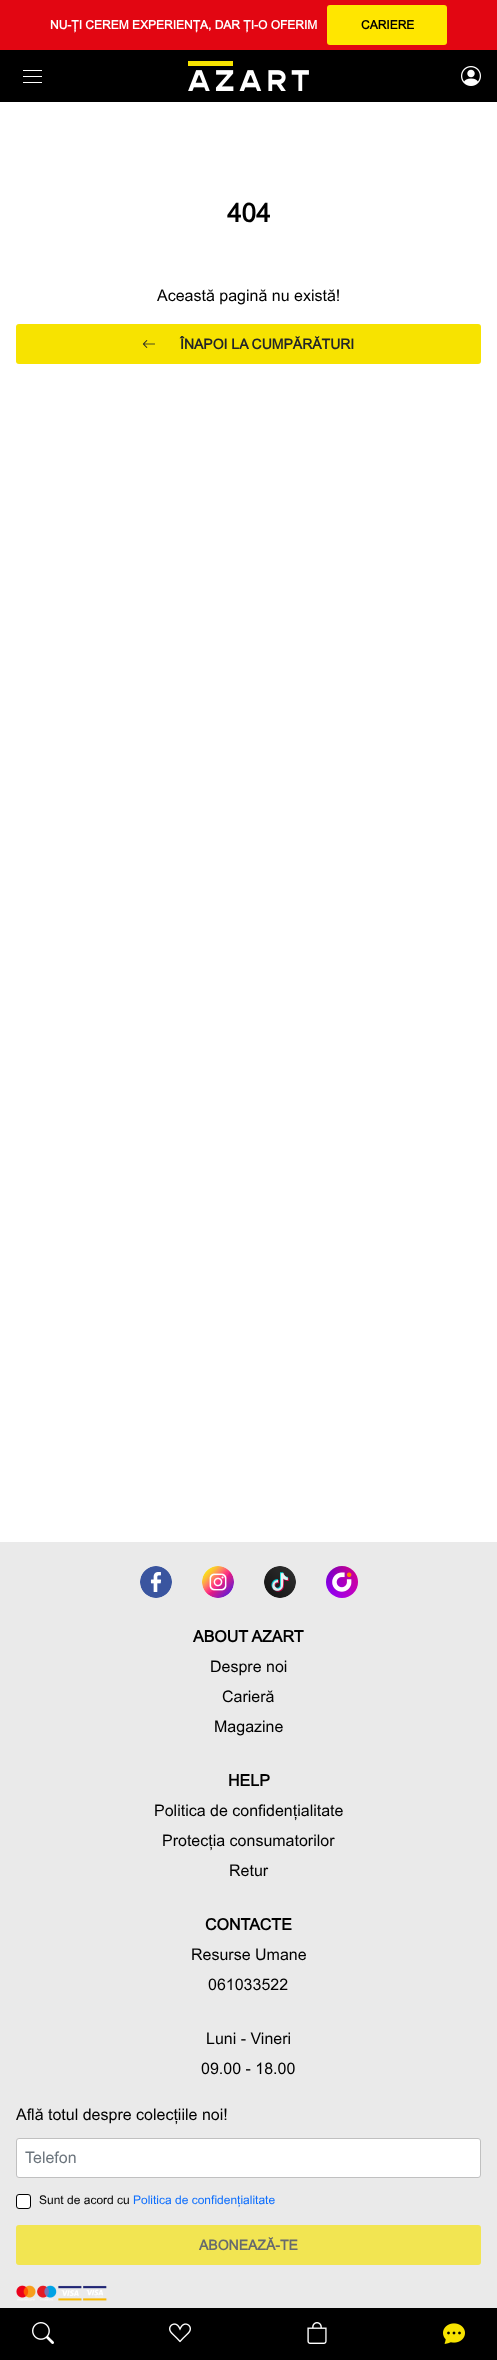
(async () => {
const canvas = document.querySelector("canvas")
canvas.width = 497
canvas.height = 2360
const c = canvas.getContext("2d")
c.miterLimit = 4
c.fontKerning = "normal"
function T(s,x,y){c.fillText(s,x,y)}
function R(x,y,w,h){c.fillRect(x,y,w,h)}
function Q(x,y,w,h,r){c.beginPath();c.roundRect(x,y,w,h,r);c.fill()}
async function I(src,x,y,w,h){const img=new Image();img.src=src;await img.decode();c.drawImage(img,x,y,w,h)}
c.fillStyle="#fff"
R(0,0,497,2360)
c.fillStyle="#e20612"
R(0,0,497,50)
c.font="bold 12px Arial"
c.fillStyle="#fff"
T("NU-ȚI CEREM EXPERIENȚA, DAR ȚI-O OFERIM",50,29)
c.fillStyle="#ffe600"
Q(327,5,120,40,3)
c.fillStyle="#000"
T("CARIERE",361,29)
R(0,50,497,52)
c.fillStyle="#fff"
R(23,70,19,1)
R(23,76,19,1)
R(23,82,19,1)
await I("1.png",188,61,121,30)
await I("2.png",461,66,20,20)
c.font="bold 26px Arial"
c.fillStyle="#000"
T("404",227,222)
c.font="16px Arial"
T("Această pagină nu există!",157,301)
c.fillStyle="#f7e300"
Q(16,324,465,40,3)
await I("3.png",142,340,13,8)
c.font="bold 14px Arial"
c.fillStyle="#212529"
T("ÎNAPOI LA CUMPĂRĂTURI",180,349)
c.fillStyle="#eaeaea"
R(0,1542,497,766)
await I("4.png",140,1566,32,32)
await I("5.png",202,1566,32,32)
await I("6.png",264,1566,32,32)
await I("7.png",326,1566,32,32)
c.font="bold 16px Arial"
c.fillStyle="#000"
T("ABOUT AZART",193,1642)
c.font="16px Arial"
T("Despre noi",210,1672)
T("Carieră",222,1702)
T("Magazine",214,1732)
c.font="bold 16px Arial"
T("HELP",228,1786)
c.font="16px Arial"
T("Politica de confidențialitate",154,1816)
T("Protecția consumatorilor",162,1846)
T("Retur",229,1876)
c.font="bold 16px Arial"
T("CONTACTE",205,1930)
c.font="16px Arial"
T("Resurse Umane",191,1960)
T("061033522",208,1990)
T("Luni - Vineri",206,2044)
T("09.00 - 18.00",201,2074)
T("Află totul despre colecțiile noi!",16,2120)
c.fillStyle="#fff"
c.beginPath()
c.roundRect(16.5,2138.5,464,39,2.5)
c.fill()
c.strokeStyle="#c0c0c0"
c.stroke()
c.fillStyle="#6c757d"
T("Telefon",25,2163)
c.fillStyle="#fff"
c.beginPath()
c.roundRect(16.5,2194.5,14,14,2.5)
c.fill()
c.strokeStyle="#000"
c.stroke()
c.font="12px Arial"
c.fillStyle="#000"
T("Sunt de acord cu",39,2204)
c.fillStyle="#0d6efd"
T("Politica de confidențialitate",133,2204)
c.fillStyle="#f2e552"
Q(16,2225,465,40,3)
c.font="bold 14px Arial"
c.fillStyle="#676a6d"
T("ABONEAZĂ-TE",199,2250)
await I("8.png",16,2285,91,16)
c.fillStyle="#000"
R(0,2308,497,52)
await I("9.png",32,2322,22,22)
await I("10.png",169,2323,22,20)
await I("11.png",307,2322,20,22)
await I("12.png",443,2323,22,21)
})()
